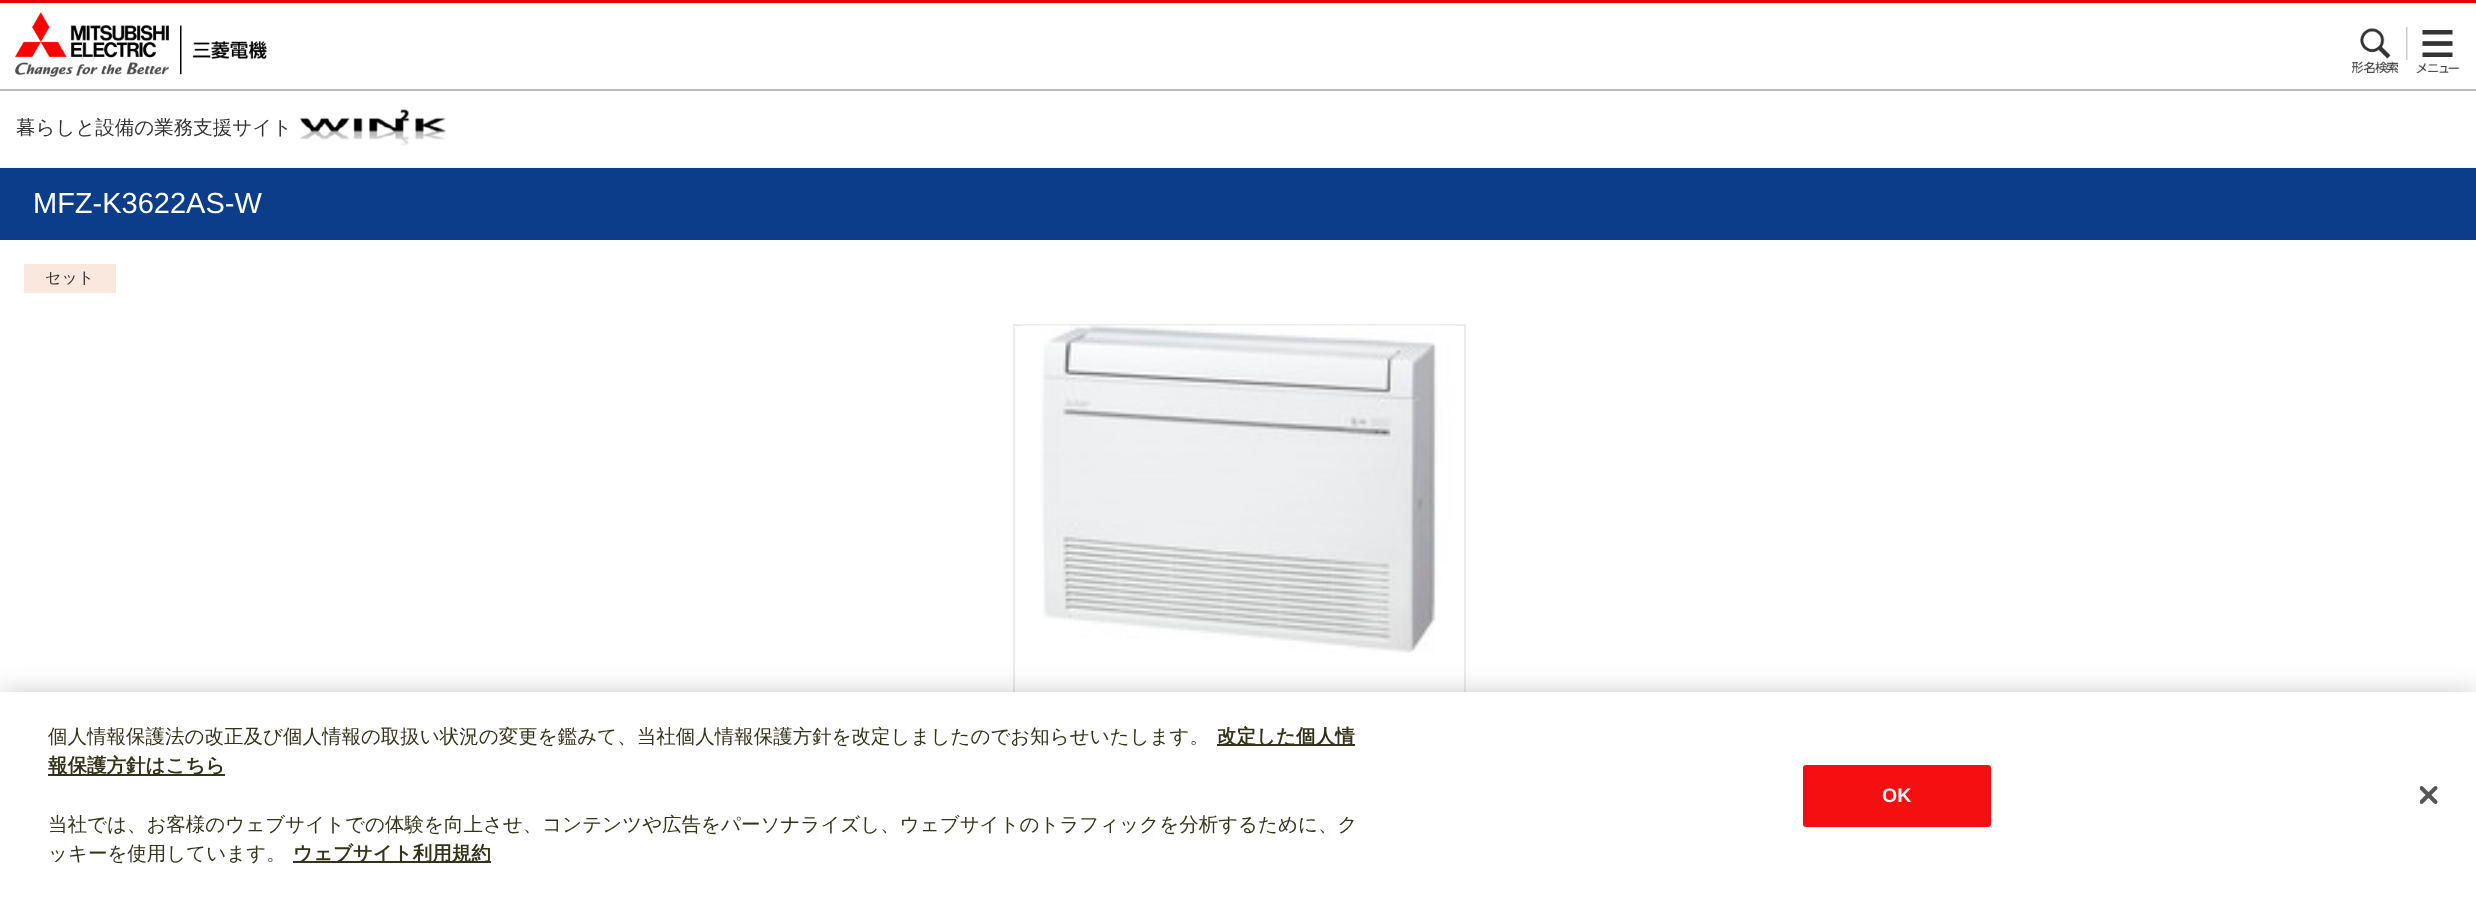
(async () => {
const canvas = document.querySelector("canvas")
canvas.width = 2476
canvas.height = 903
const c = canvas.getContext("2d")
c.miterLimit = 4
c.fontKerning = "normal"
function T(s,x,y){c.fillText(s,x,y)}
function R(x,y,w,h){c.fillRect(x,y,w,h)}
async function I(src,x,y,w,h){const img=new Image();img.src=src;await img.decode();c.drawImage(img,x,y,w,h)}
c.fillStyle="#fff"
R(0,0,2476,903)
c.fillStyle="#e60000"
R(0,0,2476,3)
c.fillStyle="#bbb"
R(0,89,2476,2)
await I("1.png",15,12,252,65)
await I("2.png",2351,27,57,47)
await I("3.png",2416,30,44,44)
c.fillStyle="#f5f5f5"
R(0,167,2476,1)
c.font="500 19.5px WenQuanYi Zen Hei"
c.fillStyle="#333"
T("暮らしと設備の業務支援サイト",16,134)
await I("4.png",300,109,146,37)
c.fillStyle="#0b3d8a"
R(0,168,2476,72)
c.font="29px Liberation Sans"
c.fillStyle="#fff"
T("MFZ-K3622AS-W",33,213)
c.fillStyle="#fae7de"
R(24,264,92,29)
c.font="500 16px WenQuanYi Zen Hei"
c.fillStyle="#333"
T("セット",45,283)
c.strokeStyle="#ebebeb"
c.lineWidth=2
c.strokeRect(1014,325,451,451)
await I("5.png",1021,325,436,328)
c.fillStyle="#00000033"
c.filter="blur(13.5px)"
c.beginPath()
c.rect(0,692,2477,211)
c.fill()
c.filter="none"
c.fillStyle="#fff"
R(0,692,2476,211)
c.font="500 19.5px WenQuanYi Zen Hei"
c.fillStyle="#33331a"
T("個人情報保護法の改正及び個人情報の取扱い状況の変更を鑑みて、当社個人情報保護方針を改定しましたのでお知らせいたします。",48,743)
R(1217,744,138,2)
c.font="bold 19.5px WenQuanYi Zen Hei"
T("改定した個人情",1217,743)
R(48,774,177,2)
T("報保護方針はこちら",48,772)
c.font="500 19.5px WenQuanYi Zen Hei"
T("当社では、お客様のウェブサイトでの体験を向上させ、コンテンツや広告をパーソナライズし、ウェブサイトのトラフィックを分析するために、ク",48,831)
T("ッキーを使用しています。",48,860)
R(293,861,198,2)
c.font="bold 19.5px WenQuanYi Zen Hei"
T("ウェブサイト利用規約",293,860)
c.fillStyle="#f50f10"
c.beginPath()
c.roundRect(1804,766,186,60,2)
c.fill()
c.strokeStyle="#f50f10"
c.stroke()
c.font="bold 19.5px Liberation Sans"
c.fillStyle="#fff"
T("OK",1882,802)
await I("6.png",2420,786,18,18)
})()
